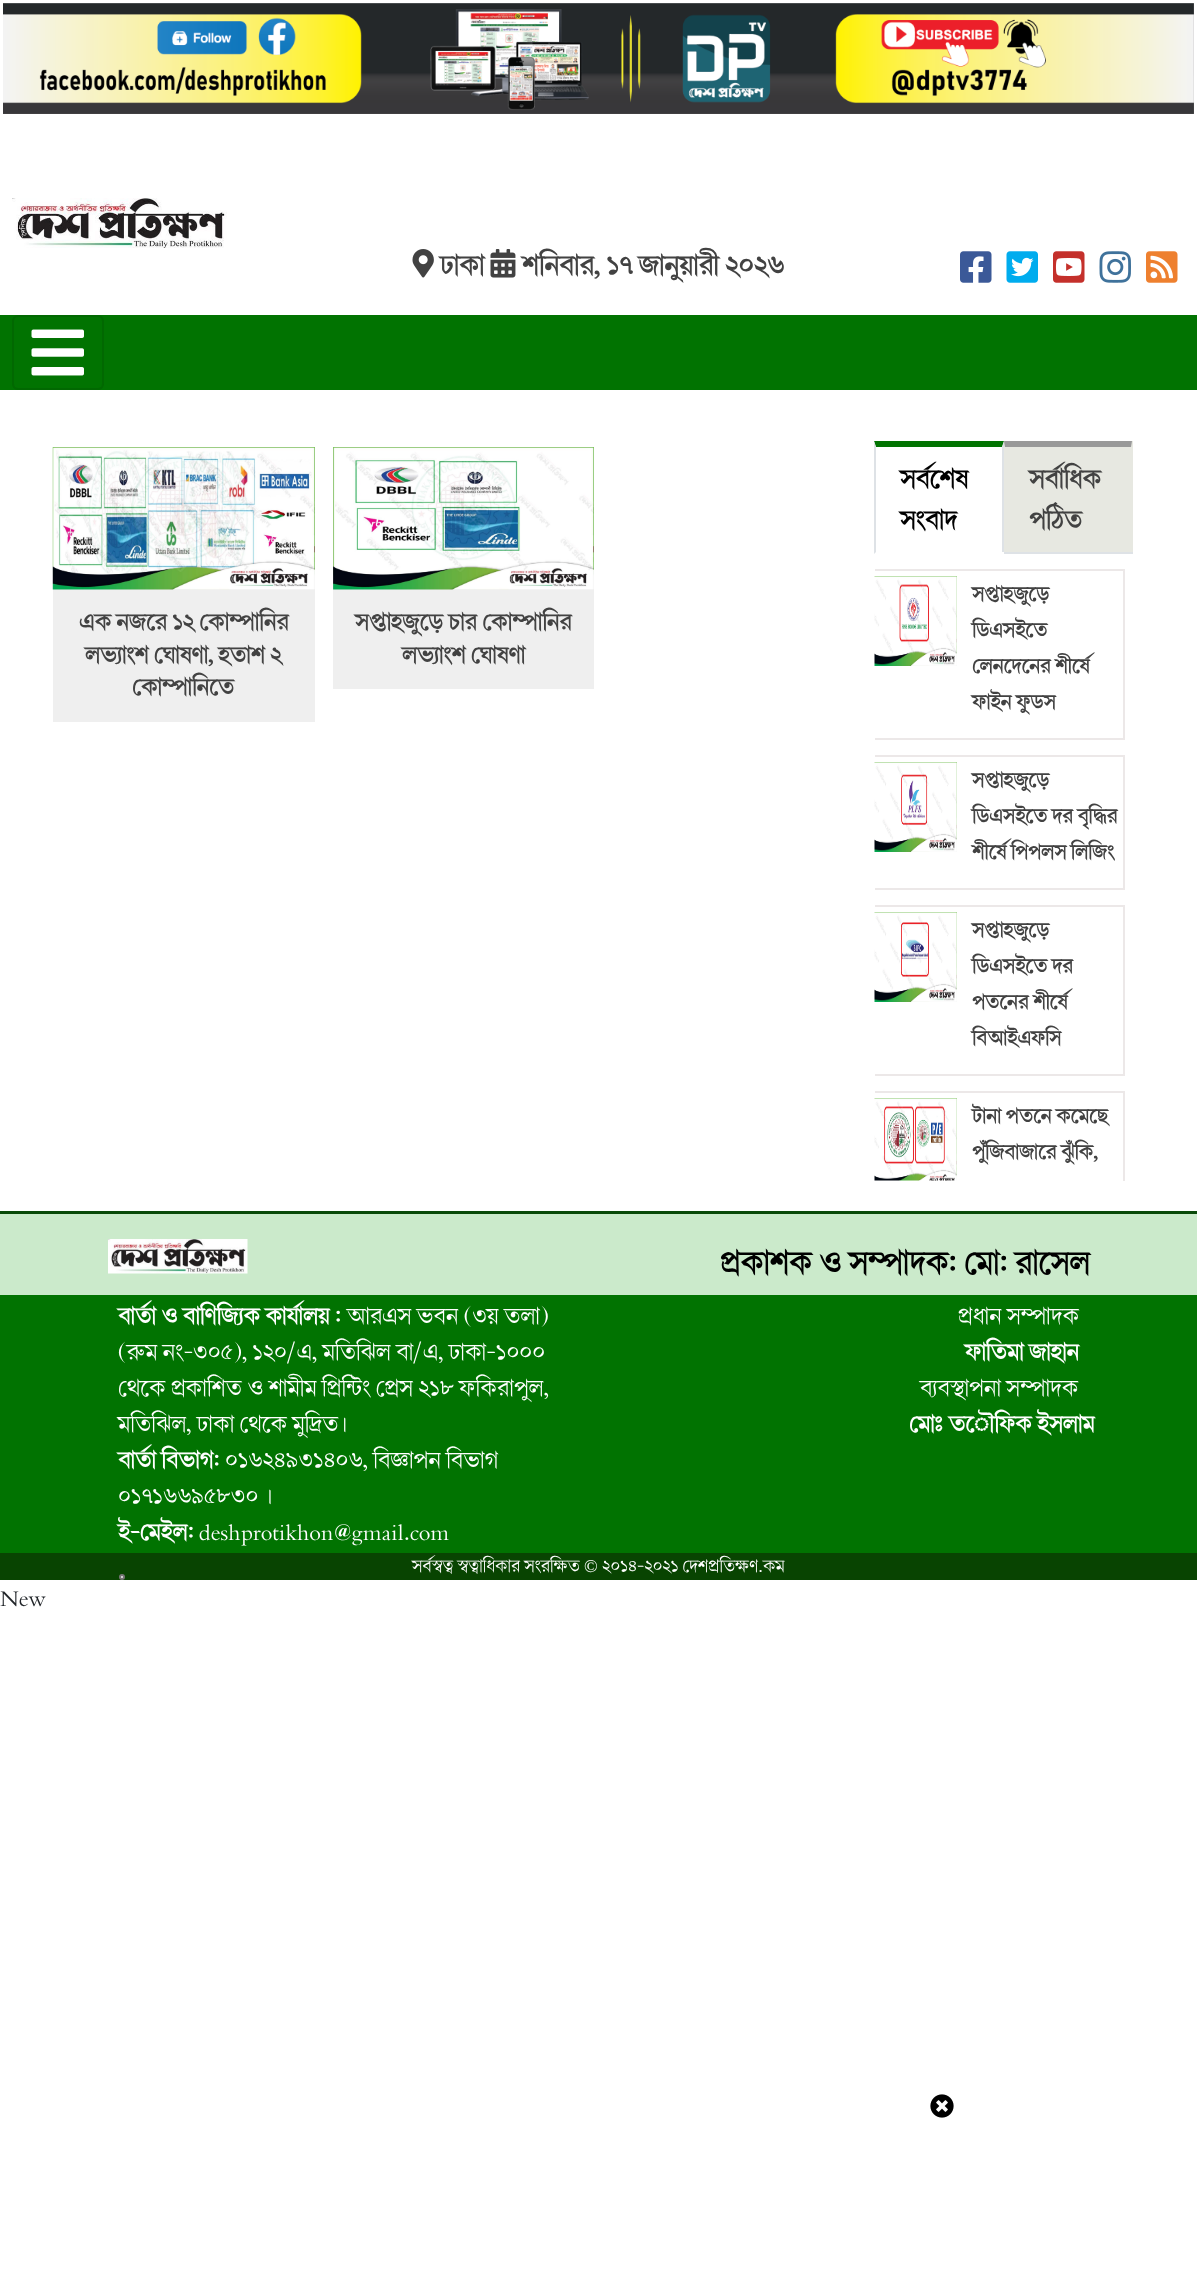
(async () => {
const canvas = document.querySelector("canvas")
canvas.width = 1197
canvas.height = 2285
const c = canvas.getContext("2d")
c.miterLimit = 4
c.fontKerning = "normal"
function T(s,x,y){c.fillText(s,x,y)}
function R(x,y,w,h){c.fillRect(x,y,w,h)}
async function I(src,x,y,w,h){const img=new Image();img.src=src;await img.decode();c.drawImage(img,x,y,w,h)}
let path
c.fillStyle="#fff"
R(0,0,1197,2285)
await I("1.png",3,3,1191,111)
await I("2.png",12,198,215,50)
await I("3.png",412,249,22,29)
c.font="bold 28.5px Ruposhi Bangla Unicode"
c.fillStyle="#424242"
T("ঢাকা",440,275)
await I("4.png",490,249,26,29)
T("শনিবার, ১৭ জানুয়ারী ২০২৬",522,275)
await I("5.png",960,251,32,32)
await I("6.png",1006,251,32,32)
await I("7.png",1053,251,32,32)
await I("8.png",1099,251,32,32)
await I("9.png",1146,251,32,32)
c.fillStyle="#017301"
R(0,315,1197,75)
c.beginPath()
c.roundRect(13,316,90,73,5)
c.strokeStyle="#016801"
c.lineWidth=2
c.stroke()
await I("10.png",31,329,53,47)
c.fillStyle="#efefef"
R(53,589,262,133)
await I("11.png",52,447,263,143)
c.font="bold 24px Ruposhi Bangla Unicode"
c.fillStyle="#424242"
T("এক নজরে ১২ কোম্পানির",79,630)
T("লভ্যাংশ ঘোষণা, হতাশ ২",85,663)
T("কোম্পানিতে",132,695)
c.fillStyle="#efefef"
R(333,589,261,100)
await I("12.png",333,447,261,143)
c.fillStyle="#424242"
T("সপ্তাহজুড়ে চার কোম্পানির",355,630)
T("লভ্যাংশ ঘোষণা",402,663)
c.fillStyle="#e7e8e1"
R(875,441,258,111)
c.fillStyle="#dee2e6"
R(1004,552,129,2)
c.fillStyle="#fff"
R(876,447,126,105)
c.fillStyle="#017301"
path = new Path2D("M874 441h130l-2 6h-126z")
c.fill(path)
c.fillStyle="#dee2e6"
path = new Path2D("M1004 441v113l-2-2v-105z")
c.fill(path)
c.fillStyle="#fff"
R(1002,552,2,2)
c.fillStyle="#dee2e6"
path = new Path2D("M874 554v-113l2 6v105z")
c.fill(path)
c.font="bold 27px Ruposhi Bangla Unicode"
c.fillStyle="#000"
T("সর্বশেষ",900,488)
T("সংবাদ",900,529)
c.fillStyle="#999"
path = new Path2D("M1004 441h128l-1 6h-126z")
c.fill(path)
c.fillStyle="#424242"
T("সর্বাধিক",1029,488)
T("পঠিত",1029,529)
c.save()
c.beginPath()
c.rect(875,554,258,627)
c.clip()
c.strokeStyle="#ece8e8"
c.strokeRect(871,570,253,169)
c.restore()
await I("13.png",874,576,83,90)
c.font="bold 21px Ruposhi Bangla Unicode"
T("সপ্তাহজুড়ে",972,601)
T("ডিএসইতে",972,637)
T("লেনদেনের শীর্ষে",972,673)
T("ফাইন ফুডস",972,709)
c.save()
c.beginPath()
c.rect(875,554,258,627)
c.clip()
c.strokeStyle="#ece8e8"
c.strokeRect(871,756,253,133)
c.restore()
await I("14.png",874,762,83,90)
T("সপ্তাহজুড়ে",972,787)
T("ডিএসইতে দর বৃদ্ধির",972,823)
T("শীর্ষে পিপলস লিজিং",972,859)
c.save()
c.beginPath()
c.rect(875,554,258,627)
c.clip()
c.strokeStyle="#ece8e8"
c.strokeRect(871,906,253,169)
c.restore()
await I("15.png",874,912,83,90)
T("সপ্তাহজুড়ে",972,937)
T("ডিএসইতে দর",972,973)
T("পতনের শীর্ষে",972,1009)
T("বিআইএফসি",972,1045)
c.fillStyle="#cbeacb"
R(0,1214,1197,81)
c.fillStyle="#094a09"
R(0,1211,1197,3)
c.save()
c.beginPath()
c.rect(875,554,258,627)
c.clip()
c.strokeStyle="#ece8e8"
c.strokeRect(871,1092,253,133)
c.restore()
await I("16.png",874,1098,83,83)
c.fillStyle="#424242"
T("টানা পতনে কমেছে",972,1123)
T("পুঁজিবাজারে ঝুঁকি,",972,1159)
await I("17.png",108,1239,140,35)
c.font="bold 33px Ruposhi Bangla Unicode"
c.fillStyle="#000"
T("প্রকাশক ও সম্পাদক: মো: রাসেল",720,1274)
c.fillStyle="#017301"
R(0,1295,1197,258)
c.font="bold 24px Ruposhi Bangla Unicode"
c.fillStyle="#fff"
T("বার্তা ও বাণিজ্যিক কার্যালয় :",118,1324)
c.font="24px Ruposhi Bangla Unicode"
T("আরএস ভবন (৩য় তলা)",347,1324)
T("(রুম নং-৩০৫), ১২০/এ, মতিঝিল বা/এ, ঢাকা-১০০০",118,1360)
T("থেকে প্রকাশিত ও শামীম প্রিন্টিং প্রেস ২১৮ ফকিরাপুল,",118,1396)
T("মতিঝিল, ঢাকা থেকে মুদ্রিত।",118,1432)
c.font="bold 24px Ruposhi Bangla Unicode"
T("বার্তা বিভাগ:",118,1468)
c.font="24px Ruposhi Bangla Unicode"
T("০১৬২৪৯৩১৪০৬, বিজ্ঞাপন বিভাগ",225,1468)
T("০১৭১৬৬৯৫৮৩০ ।",118,1504)
c.font="bold 24px Ruposhi Bangla Unicode"
T("ই-মেইল:",118,1540)
c.font="24px Ruposhi Bangla Unicode"
T("deshprotikhon@gmail.com",199,1540)
T("প্রধান সম্পাদক",958,1324)
c.font="bold 24px Ruposhi Bangla Unicode"
T("ফাতিমা জাহান",965,1360)
c.font="24px Ruposhi Bangla Unicode"
T("ব্যবস্থাপনা সম্পাদক",920,1396)
c.font="bold 24px Ruposhi Bangla Unicode"
T("মোঃ তৌফিক ইসলাম",909,1432)
c.fillStyle="#084401"
R(0,1553,1197,27)
c.fillStyle="#efefef"
c.beginPath()
c.arc(122,1577,2,0,7)
c.fill()
c.strokeStyle="#767676"
c.stroke()
await I("18.png",930,2094,24,24)
c.font="18px Ruposhi Bangla Unicode"
c.fillStyle="#fff"
T("সর্বস্বত্ব স্বত্বাধিকার সংরক্ষিত",412,1572)
c.font="18px Liberation Serif"
T("©",584,1572)
c.font="18px Ruposhi Bangla Unicode"
T("২০১৪-২০২১ দেশপ্রতিক্ষণ.কম",602,1572)
c.font="24px Ruposhi Bangla Unicode"
c.fillStyle="#212529"
T("New",0,1606)
})()
